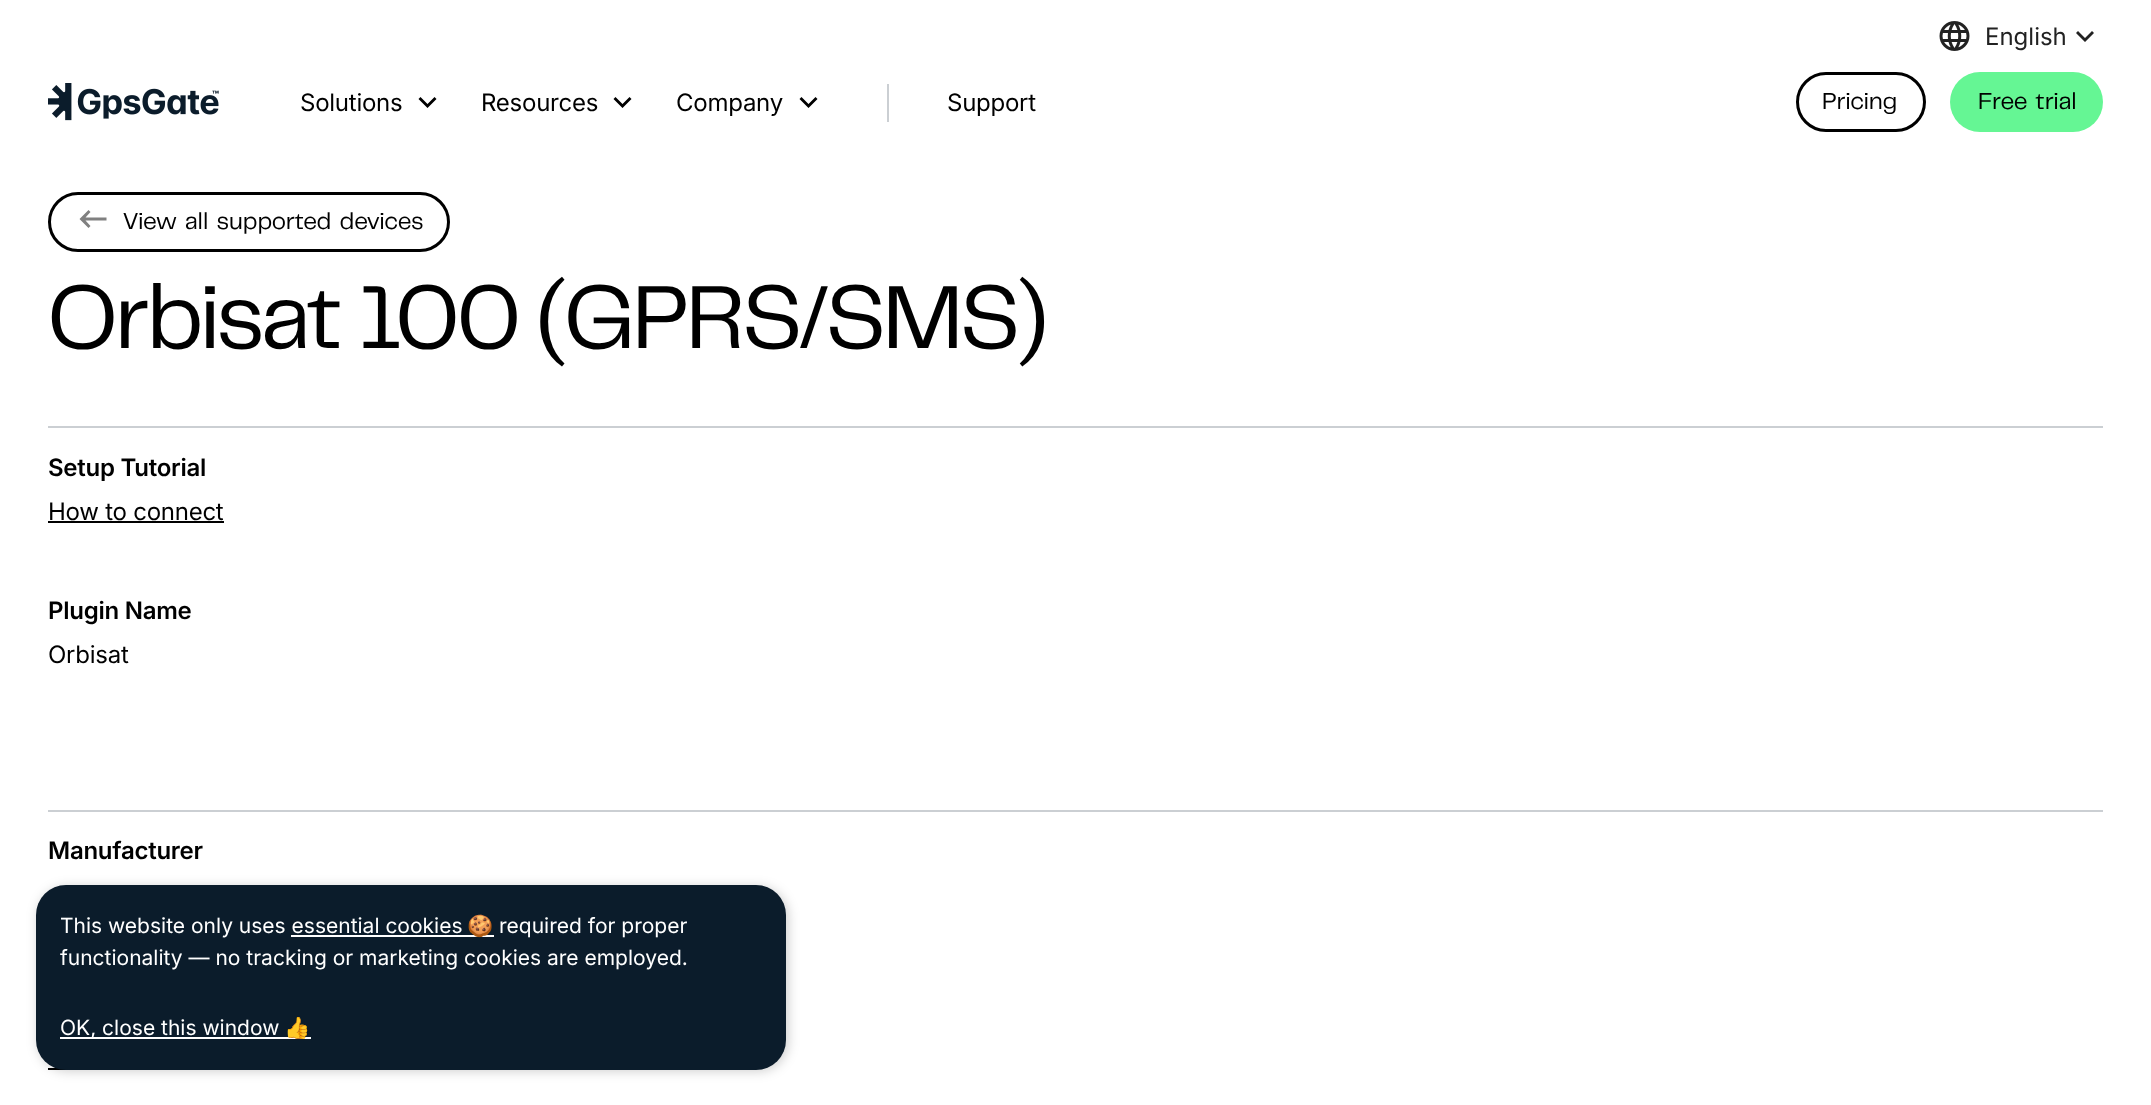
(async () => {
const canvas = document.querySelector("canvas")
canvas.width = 2151
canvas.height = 1105
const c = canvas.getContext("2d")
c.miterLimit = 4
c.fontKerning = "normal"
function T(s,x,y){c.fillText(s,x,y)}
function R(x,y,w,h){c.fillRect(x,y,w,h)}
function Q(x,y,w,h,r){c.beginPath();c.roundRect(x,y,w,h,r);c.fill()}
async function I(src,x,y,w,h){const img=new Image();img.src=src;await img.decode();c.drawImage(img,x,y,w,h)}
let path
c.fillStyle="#fff"
R(0,0,2151,1105)
await I("1.png",1939,21,31,30)
c.font="24px Inter"
c.fillStyle="#222"
T("English",1985,45)
path = new Path2D("M2078 31l7 7l7-7l2 2l-9 9l-9-9z")
c.fill(path)
await I("2.png",48,83,171,38)
c.letterSpacing="-0.25px"
c.fillStyle="#000"
T("Solutions",300,111)
path = new Path2D("M434.5 97l2 2l-9 9l-9-9l2-2l7 7z")
c.fill(path)
T("Resources",481,111)
path = new Path2D("M629.5 97l2 2l-9 9l-9-9l2-2l7 7z")
c.fill(path)
T("Company",676,111)
path = new Path2D("M815.5 97l2 2l-9 9l-9-9l2-2l7 7z")
c.fill(path)
c.fillStyle="#cbcfd3"
R(887,84,2,38)
c.fillStyle="#000"
T("Support",947,111)
c.beginPath()
c.roundRect(1797.5,73.5,127,57,28.5)
c.strokeStyle="#000"
c.lineWidth=3
c.stroke()
c.letterSpacing="0px"
c.font="24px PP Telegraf"
T("Pricing",1822,109)
c.fillStyle="#65f694"
Q(1950,72,153,60,30)
c.wordSpacing="3px"
c.fillStyle="#000"
T("Free trial",1978,109)
c.beginPath()
c.roundRect(49.5,193.5,399,57,28.5)
c.stroke()
c.fillStyle="#808080"
path = new Path2D("M106.5 217.5v3h-21l5 5.5l-2 2l-9-9l9-9l2 2l-5 5.5z")
c.fill(path)
c.fillStyle="#000"
T("View all supported devices",123,229)
c.letterSpacing="-2.75px"
c.wordSpacing="0px"
c.font="93px PP Telegraf"
T("Orbisat 100 (GPRS/SMS)",48,348)
c.fillStyle="#cbcfd3"
R(48,426,2055,2)
c.letterSpacing="-0.25px"
c.font="600 24px Inter"
c.fillStyle="#000"
T("Setup Tutorial",48,476)
c.font="24px Inter"
T("How to connect",48,520)
R(48,521,176,2)
c.font="600 24px Inter"
T("Plugin Name",48,619)
c.font="24px Inter"
T("Orbisat",48,663)
c.fillStyle="#cbcfd3"
R(48,810,2055,2)
c.font="600 24px Inter"
c.fillStyle="#000"
T("Manufacturer",48,859)
R(48,1068,18,2)
c.fillStyle="#00000033"
c.filter="blur(6px)"
c.beginPath()
c.roundRect(38,887,750,184,30)
c.fill()
c.filter="none"
c.fillStyle="#0b1c2b"
Q(36,885,750,185,30)
c.letterSpacing="0px"
c.font="21px Inter"
c.fillStyle="#fff"
T("This website only uses essential cookies",60,933)
R(291,935,203,2)
c.font="21px Noto Color Emoji"
T("🍪",467,933)
c.font="21px Inter"
T("required for proper",499,933)
T("functionality — no tracking or marketing cookies are employed.",60,965)
R(60,1037,251,2)
T("OK, close this window",60,1035)
c.font="21px Noto Color Emoji"
T("👍",284,1035)
})()
